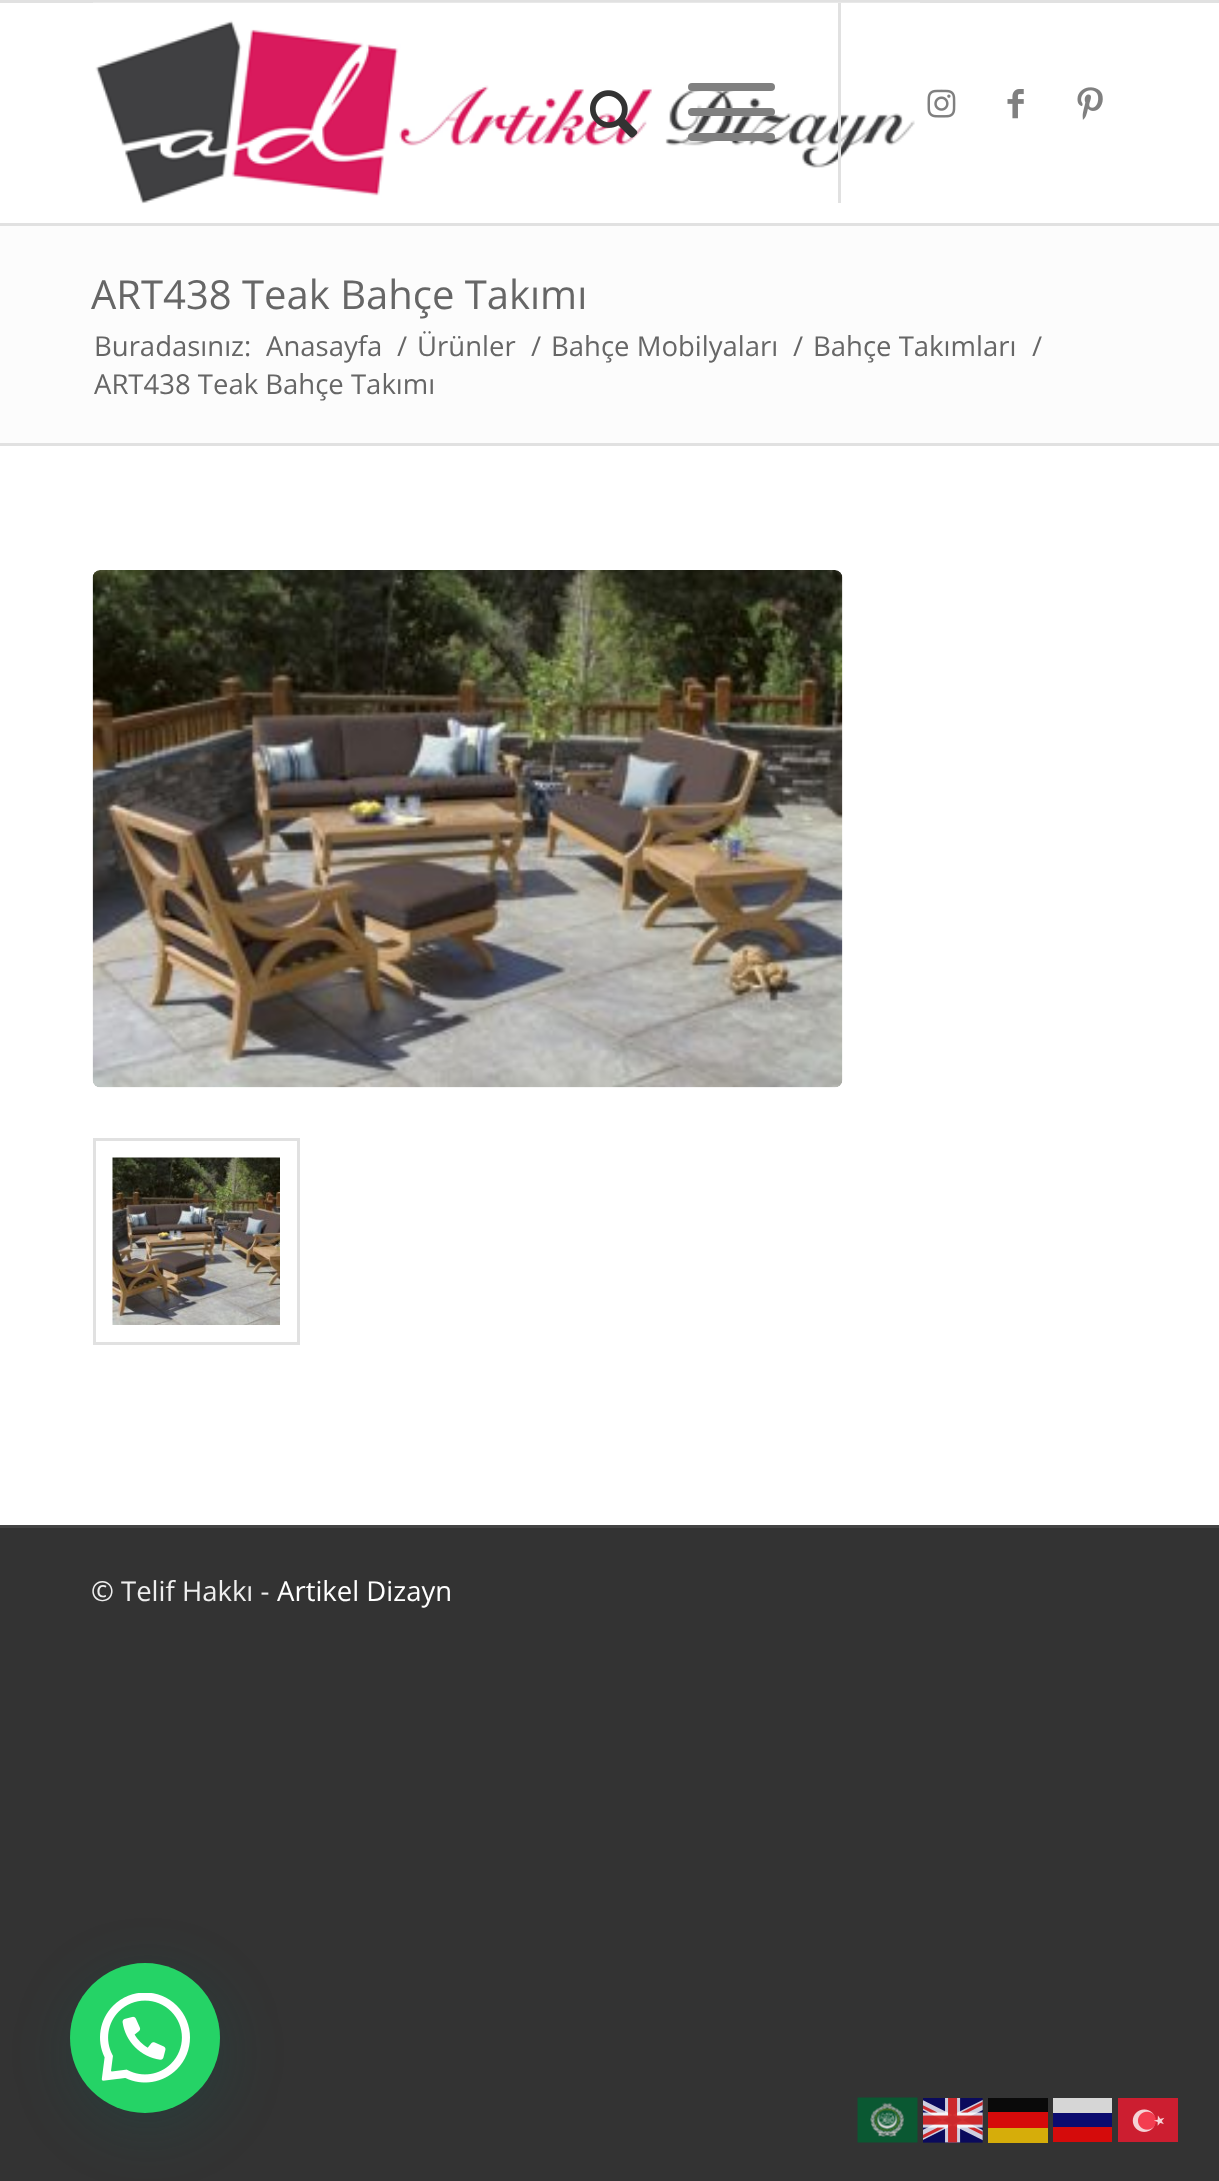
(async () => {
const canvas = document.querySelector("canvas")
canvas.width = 1219
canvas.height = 2181
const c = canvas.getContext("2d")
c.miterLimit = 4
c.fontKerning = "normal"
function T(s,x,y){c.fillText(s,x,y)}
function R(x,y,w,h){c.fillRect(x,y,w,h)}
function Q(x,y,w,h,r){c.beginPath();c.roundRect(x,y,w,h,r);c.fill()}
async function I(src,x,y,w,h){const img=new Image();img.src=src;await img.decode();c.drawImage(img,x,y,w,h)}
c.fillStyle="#333"
R(0,0,1219,2181)
c.fillStyle="#e1e1e1"
R(0,0,1219,3)
R(0,223,1219,3)
c.fillStyle="#fff"
R(0,3,1219,220)
await I("1.png",93,2,827,202)
c.fillStyle="#e1e1e1"
R(838,3,3,200)
await I("2.png",590,90,48,48)
c.fillStyle="#808080"
Q(688,108,87,8,4)
Q(688,83,87,8,4)
Q(688,133,87,8,4)
await I("3.png",927,89,29,29)
await I("4.png",1007,89,17,30)
await I("5.png",1077,87,26,33)
c.fillStyle="#fff"
R(0,446,1219,1079)
c.fillStyle="#fcfcfc"
R(0,226,1219,217)
c.font="40px Open Sans"
c.fillStyle="#666"
T("ART438 Teak Bahçe Takımı",91,309)
c.font="27.5px Open Sans"
T("Buradasınız:",94,356)
T("Anasayfa",266,356)
T("/",397,356)
T("Ürünler",417,356)
T("/",531,356)
T("Bahçe Mobilyaları",551,356)
T("/",793,356)
T("Bahçe Takımları",813,356)
T("/",1032,356)
T("ART438 Teak Bahçe Takımı",94,394)
c.fillStyle="#e1e1e1"
R(0,443,1219,3)
await I("6.png",92,570,751,518)
c.strokeStyle="#e1e1e1"
c.lineWidth=3
c.strokeRect(94.5,1139.5,204,204)
await I("7.png",112,1157,168,168)
c.fillStyle="#444"
R(0,1525,1219,3)
c.fillStyle="#eee"
T("© Telif Hakkı -",91,1601)
c.fillStyle="#fff"
T("Artikel Dizayn",277,1601)
c.fillStyle="#075e543d"
c.filter="blur(30px)"
c.beginPath()
c.roundRect(73,1978,150,150,75)
c.fill()
c.filter="none"
c.fillStyle="#25d366"
c.beginPath()
c.arc(145,2038,75,0,7)
c.fill()
await I("8.png",100,1993,90,90)
await I("9.png",857,2097,61,46)
await I("10.png",923,2098,60,45)
c.fillStyle="#0a0a0a"
R(988,2098,60,14)
c.fillStyle="#d6d6d6"
R(1053,2098,59,15)
await I("11.png",1118,2098,60,44)
c.fillStyle="#d60a0a"
R(988,2112,60,16)
c.fillStyle="#0b0b6f"
R(1053,2113,59,14)
c.fillStyle="#d6ad0a"
R(988,2128,60,15)
c.fillStyle="#d50b0b"
R(1053,2127,59,15)
})()
